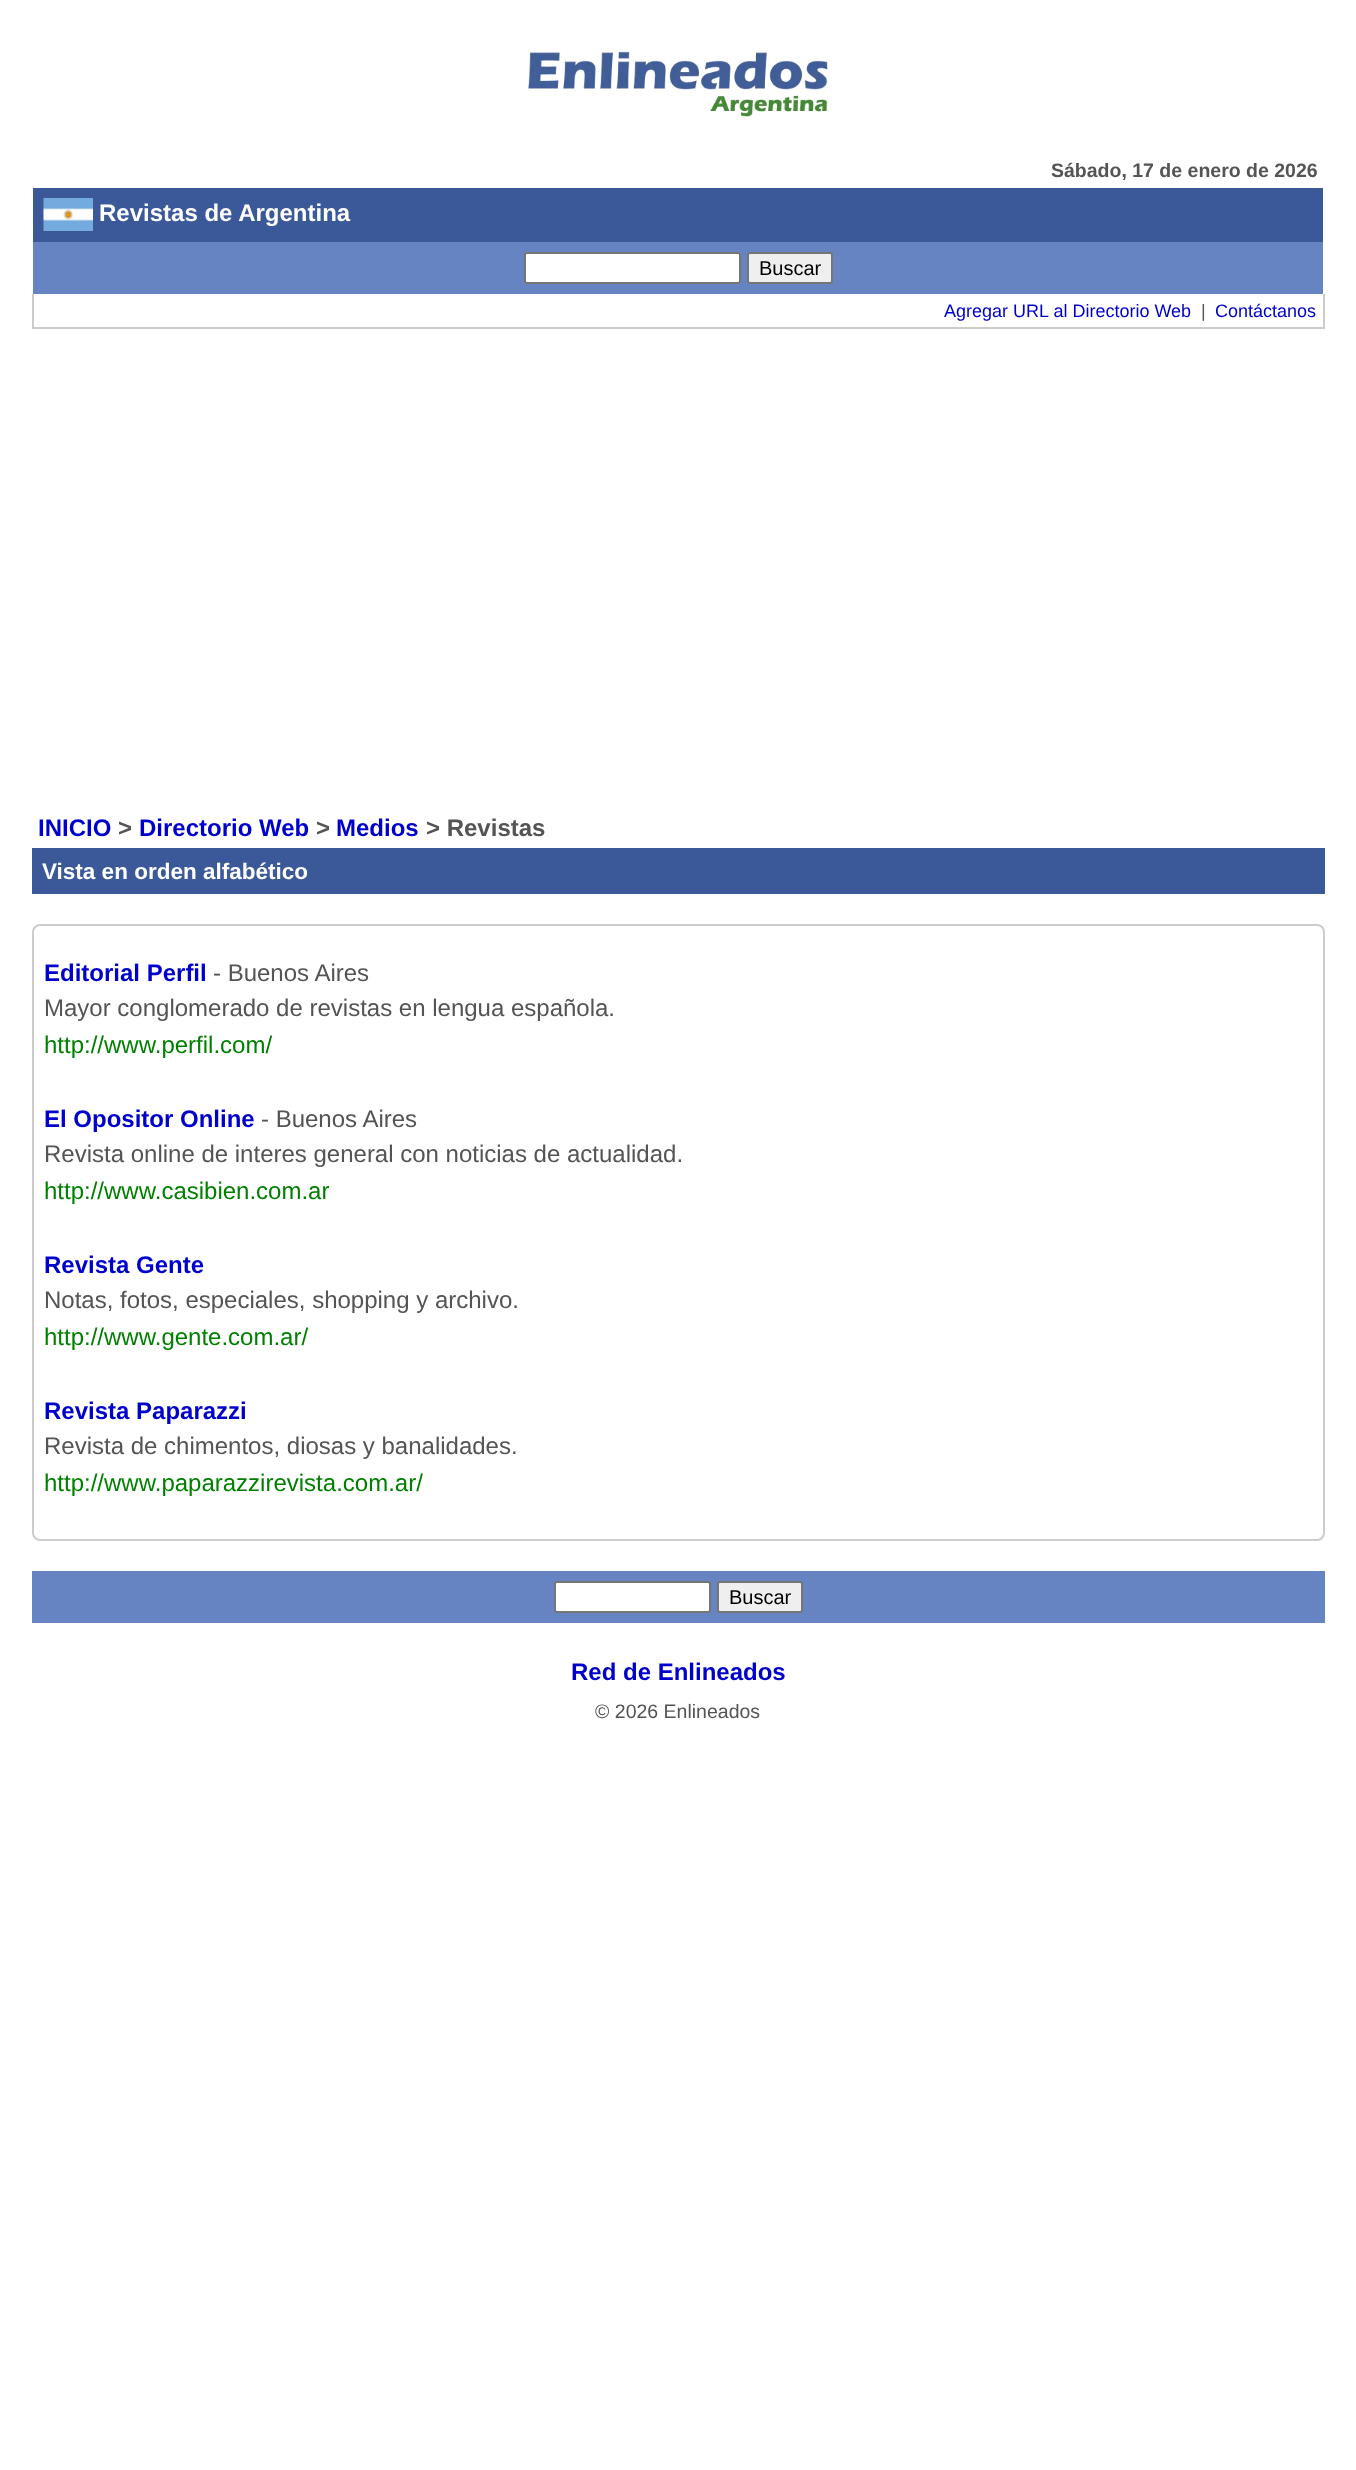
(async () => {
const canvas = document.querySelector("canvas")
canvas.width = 1356
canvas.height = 2470
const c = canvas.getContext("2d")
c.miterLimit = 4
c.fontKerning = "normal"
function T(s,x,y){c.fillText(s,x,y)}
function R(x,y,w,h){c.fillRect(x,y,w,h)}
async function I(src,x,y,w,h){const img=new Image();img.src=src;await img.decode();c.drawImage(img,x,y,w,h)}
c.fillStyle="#fff"
R(0,0,1356,2470)
await I("1.png",528,51,300,66)
c.font="bold 19.5px Liberation Sans"
c.fillStyle="#545454"
T("Sábado, 17 de enero de 2026",1051,177)
c.fillStyle="#3b5998"
R(33,188,1290,54)
await I("2.png",43,198,50,33)
c.font="bold 24px Liberation Sans"
c.fillStyle="#fff"
T("Revistas de Argentina",99,221)
c.fillStyle="#6684c1"
R(33,242,1290,52)
c.fillStyle="#fff"
c.beginPath()
c.roundRect(525,253,215,30,2)
c.fill()
c.strokeStyle="#767676"
c.lineWidth=2
c.stroke()
c.fillStyle="#efefef"
c.beginPath()
c.roundRect(748,253,84,30,2)
c.fill()
c.stroke()
c.font="20px Liberation Sans"
c.fillStyle="#000"
T("Buscar",759,275)
c.fillStyle="#ccc"
R(1323,294,2,35)
R(32,327,1293,2)
R(32,294,2,35)
c.font="18px Liberation Sans"
c.fillStyle="#00c"
T("Agregar URL al Directorio Web",944,317)
c.fillStyle="#545454"
T("|",1201,317)
c.fillStyle="#00c"
T("Contáctanos",1215,317)
c.font="bold 24px Liberation Sans"
T("INICIO",38,836)
c.fillStyle="#545454"
T(">",118,836)
c.fillStyle="#00c"
T("Directorio Web",139,836)
c.fillStyle="#545454"
T(">",316,836)
c.fillStyle="#00c"
T("Medios",336,836)
c.fillStyle="#545454"
T("> Revistas",426,836)
c.fillStyle="#3b5998"
R(32,848,1293,46)
c.font="bold 22.5px Liberation Sans"
c.fillStyle="#fff"
T("Vista en orden alfabético",42,879)
c.beginPath()
c.roundRect(33,925,1291,615,7)
c.strokeStyle="#ccc"
c.stroke()
c.font="bold 24px Liberation Sans"
c.fillStyle="#00c"
T("Editorial Perfil",44,981)
c.font="24px Liberation Sans"
c.fillStyle="#545454"
T("- Buenos Aires",213,981)
T("Mayor conglomerado de revistas en lengua española.",44,1016)
c.fillStyle="#008000"
T("http://www.perfil.com/",44,1053)
c.font="bold 24px Liberation Sans"
c.fillStyle="#00c"
T("El Opositor Online",44,1127)
c.font="24px Liberation Sans"
c.fillStyle="#545454"
T("- Buenos Aires",261,1127)
T("Revista online de interes general con noticias de actualidad.",44,1162)
c.fillStyle="#008000"
T("http://www.casibien.com.ar",44,1199)
c.font="bold 24px Liberation Sans"
c.fillStyle="#00c"
T("Revista Gente",44,1273)
c.font="24px Liberation Sans"
c.fillStyle="#545454"
T("Notas, fotos, especiales, shopping y archivo.",44,1308)
c.fillStyle="#008000"
T("http://www.gente.com.ar/",44,1345)
c.font="bold 24px Liberation Sans"
c.fillStyle="#00c"
T("Revista Paparazzi",44,1419)
c.font="24px Liberation Sans"
c.fillStyle="#545454"
T("Revista de chimentos, diosas y banalidades.",44,1454)
c.fillStyle="#008000"
T("http://www.paparazzirevista.com.ar/",44,1491)
c.fillStyle="#6684c1"
R(32,1571,1293,52)
c.fillStyle="#fff"
c.beginPath()
c.roundRect(555,1582,155,30,2)
c.fill()
c.strokeStyle="#767676"
c.stroke()
c.fillStyle="#efefef"
c.beginPath()
c.roundRect(718,1582,84,30,2)
c.fill()
c.stroke()
c.font="20px Liberation Sans"
c.fillStyle="#000"
T("Buscar",729,1604)
c.font="bold 24px Liberation Sans"
c.fillStyle="#00c"
T("Red de Enlineados",571,1680)
c.font="19.5px Liberation Sans"
c.fillStyle="#545454"
T("© 2026 Enlineados",595,1718)
})()
